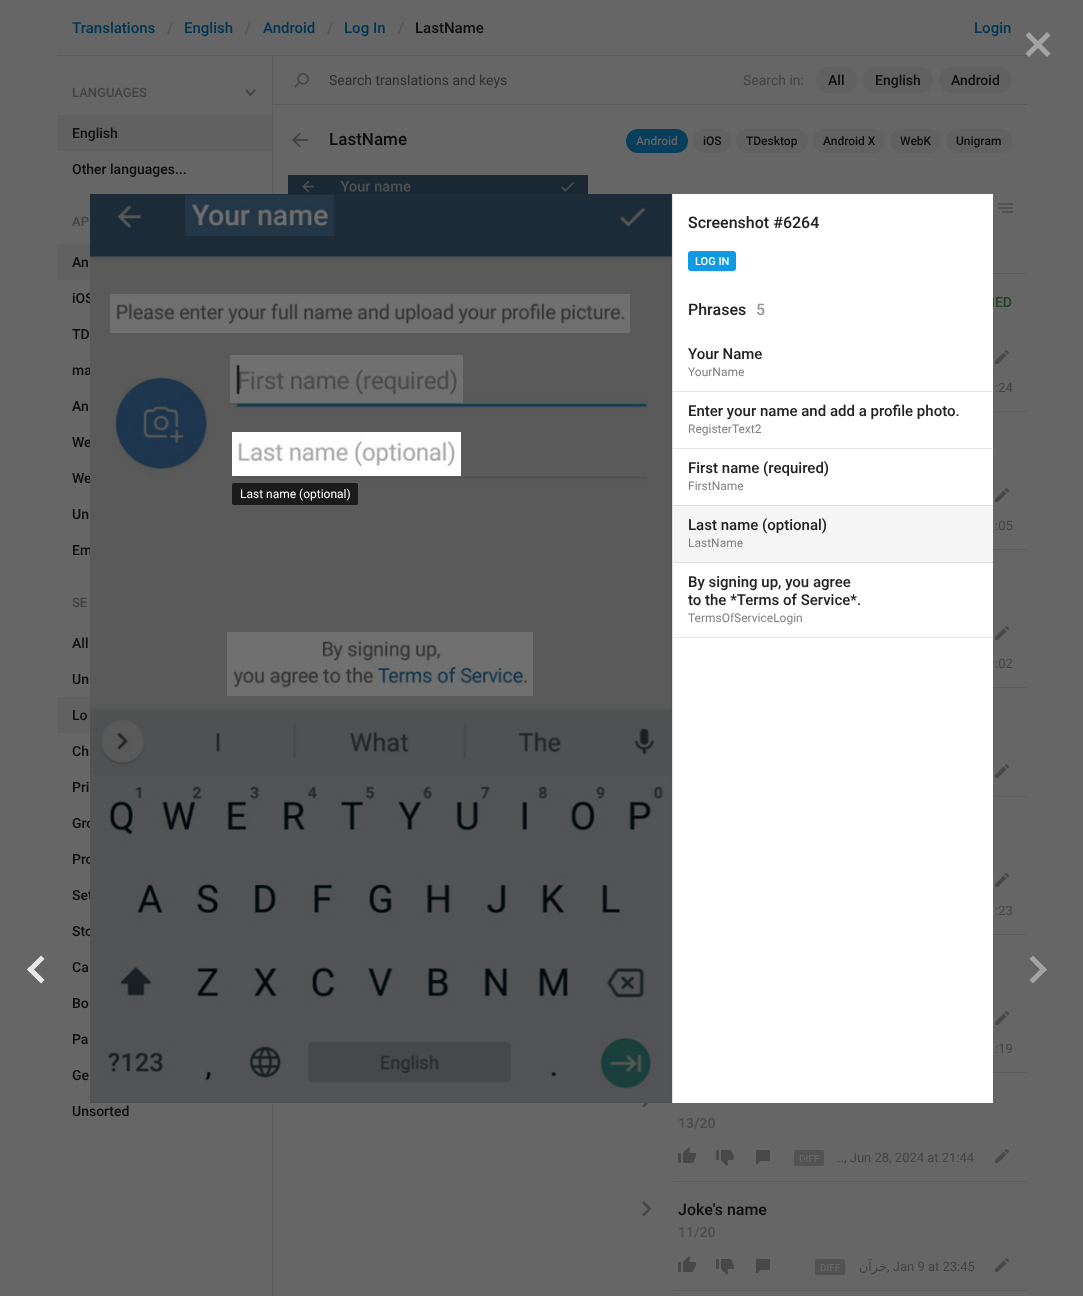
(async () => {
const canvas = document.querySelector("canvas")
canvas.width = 1083
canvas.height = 1296
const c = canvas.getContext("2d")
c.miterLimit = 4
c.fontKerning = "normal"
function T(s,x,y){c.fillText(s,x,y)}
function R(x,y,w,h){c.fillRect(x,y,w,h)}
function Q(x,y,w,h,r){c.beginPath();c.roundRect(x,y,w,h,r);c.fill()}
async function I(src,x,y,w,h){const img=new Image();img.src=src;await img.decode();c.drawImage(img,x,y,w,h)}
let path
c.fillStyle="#666"
R(0,0,1083,1296)
c.fillStyle="#5a5a5a"
R(57,55,970,1)
c.font="500 15px Roboto"
c.fillStyle="#003652"
T("Translations",72,33)
c.fillStyle="#555"
T("/",167,33)
c.fillStyle="#003652"
T("English",184,33)
c.fillStyle="#555"
T("/",245,33)
c.fillStyle="#003652"
T("Android",263,33)
c.fillStyle="#555"
T("/",327,33)
c.fillStyle="#003652"
T("Log In",344,33)
c.fillStyle="#555"
T("/",398,33)
c.fillStyle="#0e0e0e"
T("LastName",415,33)
c.fillStyle="#003652"
T("Login",974,33)
c.fillStyle="#5a5a5a"
R(273,104,754,1)
await I("1.png",294,73,15,15)
c.font="14px Roboto"
c.fillStyle="#303030"
T("Search translations and keys",329,85)
c.fillStyle="#434343"
T("Search in:",743,85)
c.fillStyle="#616161"
Q(816,67,41,26,13)
c.font="500 14px Roboto"
c.fillStyle="#0e0e0e"
T("All",828,85)
c.fillStyle="#616161"
Q(863,67,70,26,13)
c.fillStyle="#0e0e0e"
T("English",875,85)
c.fillStyle="#616161"
Q(939,67,73,26,13)
c.fillStyle="#0e0e0e"
T("Android",951,85)
c.font="500 13px Roboto"
c.fillStyle="#434343"
T("LANGUAGES",72,97)
path = new Path2D("M250.5 96l-5.5-5.5l1.5-1.5l5.5 6z")
c.fill(path)
path = new Path2D("M250.5 96l-1.5-1l5.5-6l1.5 1.5z")
c.fill(path)
c.fillStyle="#616161"
R(57,115,215,36)
c.font="500 14px Roboto"
c.fillStyle="#0e0e0e"
T("English",72,138)
T("Other languages...",72,174)
c.font="500 13px Roboto"
c.fillStyle="#434343"
T("AP",72,226)
c.fillStyle="#616161"
R(57,244,33,36)
c.font="500 14px Roboto"
c.fillStyle="#0e0e0e"
T("An",72,267)
T("iOS",72,303)
T("TD",72,339)
T("ma",72,375)
T("An",72,411)
T("We",72,447)
T("We",72,483)
T("Un",72,519)
T("Em",72,555)
c.font="500 13px Roboto"
c.fillStyle="#434343"
T("SE",72,607)
c.font="500 14px Roboto"
c.fillStyle="#0e0e0e"
T("All",72,648)
T("Un",72,684)
c.fillStyle="#616161"
R(57,697,33,36)
c.fillStyle="#0e0e0e"
T("Lo",72,720)
T("Ch",72,756)
T("Pri",72,792)
T("Gro",72,828)
T("Pro",72,864)
T("Set",72,900)
T("Sto",72,936)
T("Ca",72,972)
T("Bo",72,1008)
T("Pa",72,1044)
T("Ge",72,1080)
T("Unsorted",72,1116)
c.fillStyle="#5c5c5c"
R(272,56,1,1240)
await I("2.png",292,133,16,14)
c.font="500 17px Roboto"
c.fillStyle="#0e0e0e"
T("LastName",329,145)
c.fillStyle="#063e5b"
Q(626,129,62,24,12)
c.font="500 12px Roboto"
c.fillStyle="#666"
T("Android",636,145)
c.fillStyle="#616161"
Q(693,129,38,24,12)
c.fillStyle="#0e0e0e"
T("iOS",703,145)
c.fillStyle="#616161"
Q(736,129,72,24,12)
c.fillStyle="#0e0e0e"
T("TDesktop",746,145)
c.fillStyle="#616161"
Q(813,129,72,24,12)
c.fillStyle="#0e0e0e"
T("Android X",823,145)
c.fillStyle="#616161"
Q(890,129,51,24,12)
c.fillStyle="#0e0e0e"
T("WebK",900,145)
c.fillStyle="#616161"
Q(946,129,66,24,12)
c.fillStyle="#0e0e0e"
T("Unigram",956,145)
await I("3.png",288,175,300,19)
await I("4.png",998,203,15,10)
c.fillStyle="#5c5c5c"
R(993,273,34,1)
c.save()
c.beginPath()
c.rect(613,274,414,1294)
c.clip()
path = new Path2D("M673 411v1h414v-137h-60v136z")
c.fill(path)
c.restore()
c.font="500 14px Roboto"
c.fillStyle="#204223"
T("IED",991,307)
await I("5.png",995,350,14,14)
c.font="13px Roboto"
c.fillStyle="#434343"
T(":24",995,392)
c.save()
c.beginPath()
c.rect(613,274,414,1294)
c.clip()
c.fillStyle="#5c5c5c"
path = new Path2D("M673 549v1h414v-137h-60v136z")
c.fill(path)
c.restore()
await I("5.png",995,488,14,14)
T(":05",995,530)
c.save()
c.beginPath()
c.rect(613,274,414,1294)
c.clip()
c.fillStyle="#5c5c5c"
path = new Path2D("M673 687v1h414v-137h-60v136z")
c.fill(path)
c.restore()
await I("5.png",995,626,14,14)
T(":02",995,668)
c.save()
c.beginPath()
c.rect(613,274,414,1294)
c.clip()
c.fillStyle="#5c5c5c"
path = new Path2D("M673 796v1h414v-108h-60v107z")
c.fill(path)
c.restore()
await I("5.png",995,764,14,14)
c.save()
c.beginPath()
c.rect(613,274,414,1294)
c.clip()
c.fillStyle="#5c5c5c"
path = new Path2D("M673 934v1h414v-137h-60v136z")
c.fill(path)
c.restore()
await I("5.png",995,873,14,14)
T(":23",995,915)
c.save()
c.beginPath()
c.rect(613,274,414,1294)
c.clip()
c.fillStyle="#5c5c5c"
path = new Path2D("M673 1072v1h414v-137h-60v136z")
c.fill(path)
c.restore()
await I("5.png",995,1011,14,14)
T(":19",995,1053)
c.save()
c.beginPath()
c.rect(613,274,414,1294)
c.clip()
c.fillStyle="#5c5c5c"
path = new Path2D("M673 1181v1h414v-108h-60v107z")
c.fill(path)
c.restore()
c.fillStyle="#484848"
path = new Path2D("M648 1100l-6 5.5l2 2l7.5-8l-7.5-7.5l-2 2z")
c.fill(path)
c.font="500 14px Roboto"
c.fillStyle="#4b4b4b"
T("13/20",678,1128)
await I("6.png",678,1147,18,16)
await I("7.png",716,1150,18,16)
await I("8.png",756,1150,14,14)
c.fillStyle="#525252"
Q(794,1150,30,16,2)
c.font="500 10px Roboto"
c.fillStyle="#666"
T("DIFF",799,1162)
c.font="13px Roboto"
c.fillStyle="#434343"
T("..",837,1162)
T(", Jun 28, 2024 at 21:44",844,1162)
await I("5.png",995,1149,14,14)
c.save()
c.beginPath()
c.rect(613,274,414,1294)
c.clip()
c.fillStyle="#5c5c5c"
path = new Path2D("M673 1290v1h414v-108h-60v107z")
c.fill(path)
c.restore()
c.fillStyle="#484848"
path = new Path2D("M648 1209l-6 5.5l2 2l7.5-8l-7.5-7.5l-2 2z")
c.fill(path)
c.font="500 16px Roboto"
c.fillStyle="#0e0e0e"
T("Joke's name",678,1215)
c.font="500 14px Roboto"
c.fillStyle="#4b4b4b"
T("11/20",678,1237)
await I("6.png",678,1256,18,16)
await I("7.png",716,1259,18,16)
await I("8.png",756,1259,14,14)
c.fillStyle="#525252"
Q(815,1259,30,16,2)
c.font="500 10px Roboto"
c.fillStyle="#666"
T("DIFF",820,1271)
c.direction="rtl"
c.font="13px DejaVu Sans"
c.fillStyle="#434343"
T("خزآن",887,1271)
c.direction="ltr"
c.font="13px Roboto"
T(", Jan 9 at 23:45",887,1271)
await I("5.png",995,1258,14,14)
c.fillStyle="#e0e0e0"
R(90,194,583,909)
await I("9.png",90,194,582,908)
c.fillStyle="#00000033"
R(90,194,582,909)
await I("10.png",185,195,149,41)
await I("11.png",110,294,520,39)
await I("12.png",230,355,233,48)
await I("14.png",227,632,306,64)
c.fillStyle="#0000008f"
R(90,194,582,909)
await I("13.png",232,432,229,44)
c.fillStyle="#1b1b1b"
Q(232,483,126,22,2)
c.font="12px Roboto"
c.fillStyle="#fff"
T("Last name (optional)",240,498)
R(673,194,320,909)
c.font="500 16px Roboto"
c.fillStyle="#222"
T("Screenshot #6264",688,228)
c.fillStyle="#0f9ae4"
Q(688,251,48,20,3)
c.font="500 11px Roboto"
c.fillStyle="#fff"
T("LOG IN",695,265)
c.font="500 16px Roboto"
c.fillStyle="#222"
T("Phrases",688,315)
c.fillStyle="#999"
T("5",756,315)
c.fillStyle="#e7e7e7"
R(673,391,320,1)
c.font="500 15px Roboto"
c.fillStyle="#222"
T("Your Name",688,359)
c.font="12px Roboto"
c.fillStyle="#808080"
T("YourName",688,376)
c.fillStyle="#e7e7e7"
R(673,448,320,1)
c.font="500 15px Roboto"
c.fillStyle="#222"
T("Enter your name and add a profile photo.",688,416)
c.font="12px Roboto"
c.fillStyle="#808080"
T("RegisterText2",688,433)
c.font="500 15px Roboto"
c.fillStyle="#222"
T("First name (required)",688,473)
c.font="12px Roboto"
c.fillStyle="#808080"
T("FirstName",688,490)
c.fillStyle="#f5f5f5"
R(673,506,320,56)
c.fillStyle="#dedede"
R(673,505,320,1)
R(673,562,320,1)
c.font="500 15px Roboto"
c.fillStyle="#222"
T("Last name (optional)",688,530)
c.font="12px Roboto"
c.fillStyle="#808080"
T("LastName",688,547)
c.fillStyle="#e7e7e7"
R(673,637,320,1)
c.font="500 15px Roboto"
c.fillStyle="#222"
T("By signing up, you agree",688,587)
T("to the *Terms of Service*.",688,605)
c.font="12px Roboto"
c.fillStyle="#808080"
T("TermsOfServiceLogin",688,622)
c.fillStyle="#a3a3a3"
path = new Path2D("M1029 32l21.5 21.5l-3.5 3.5l-21.5-21.5z")
c.fill(path)
path = new Path2D("M1025.5 53.5l21.5-21.5l3.5 3.5l-21.5 21.5z")
c.fill(path)
path = new Path2D("M1033 955.5l14 14l-3.5 3.5l-14-14z")
c.fill(path)
path = new Path2D("M1029.5 980l14-14l3.5 3.5l-14 14z")
c.fill(path)
c.fillStyle="#e8e8e8"
path = new Path2D("M30.5 966l14 14l-3.5 3.5l-14-14z")
c.fill(path)
path = new Path2D("M27 969.5l14-14l3.5 3.5l-14 14z")
c.fill(path)
})()
